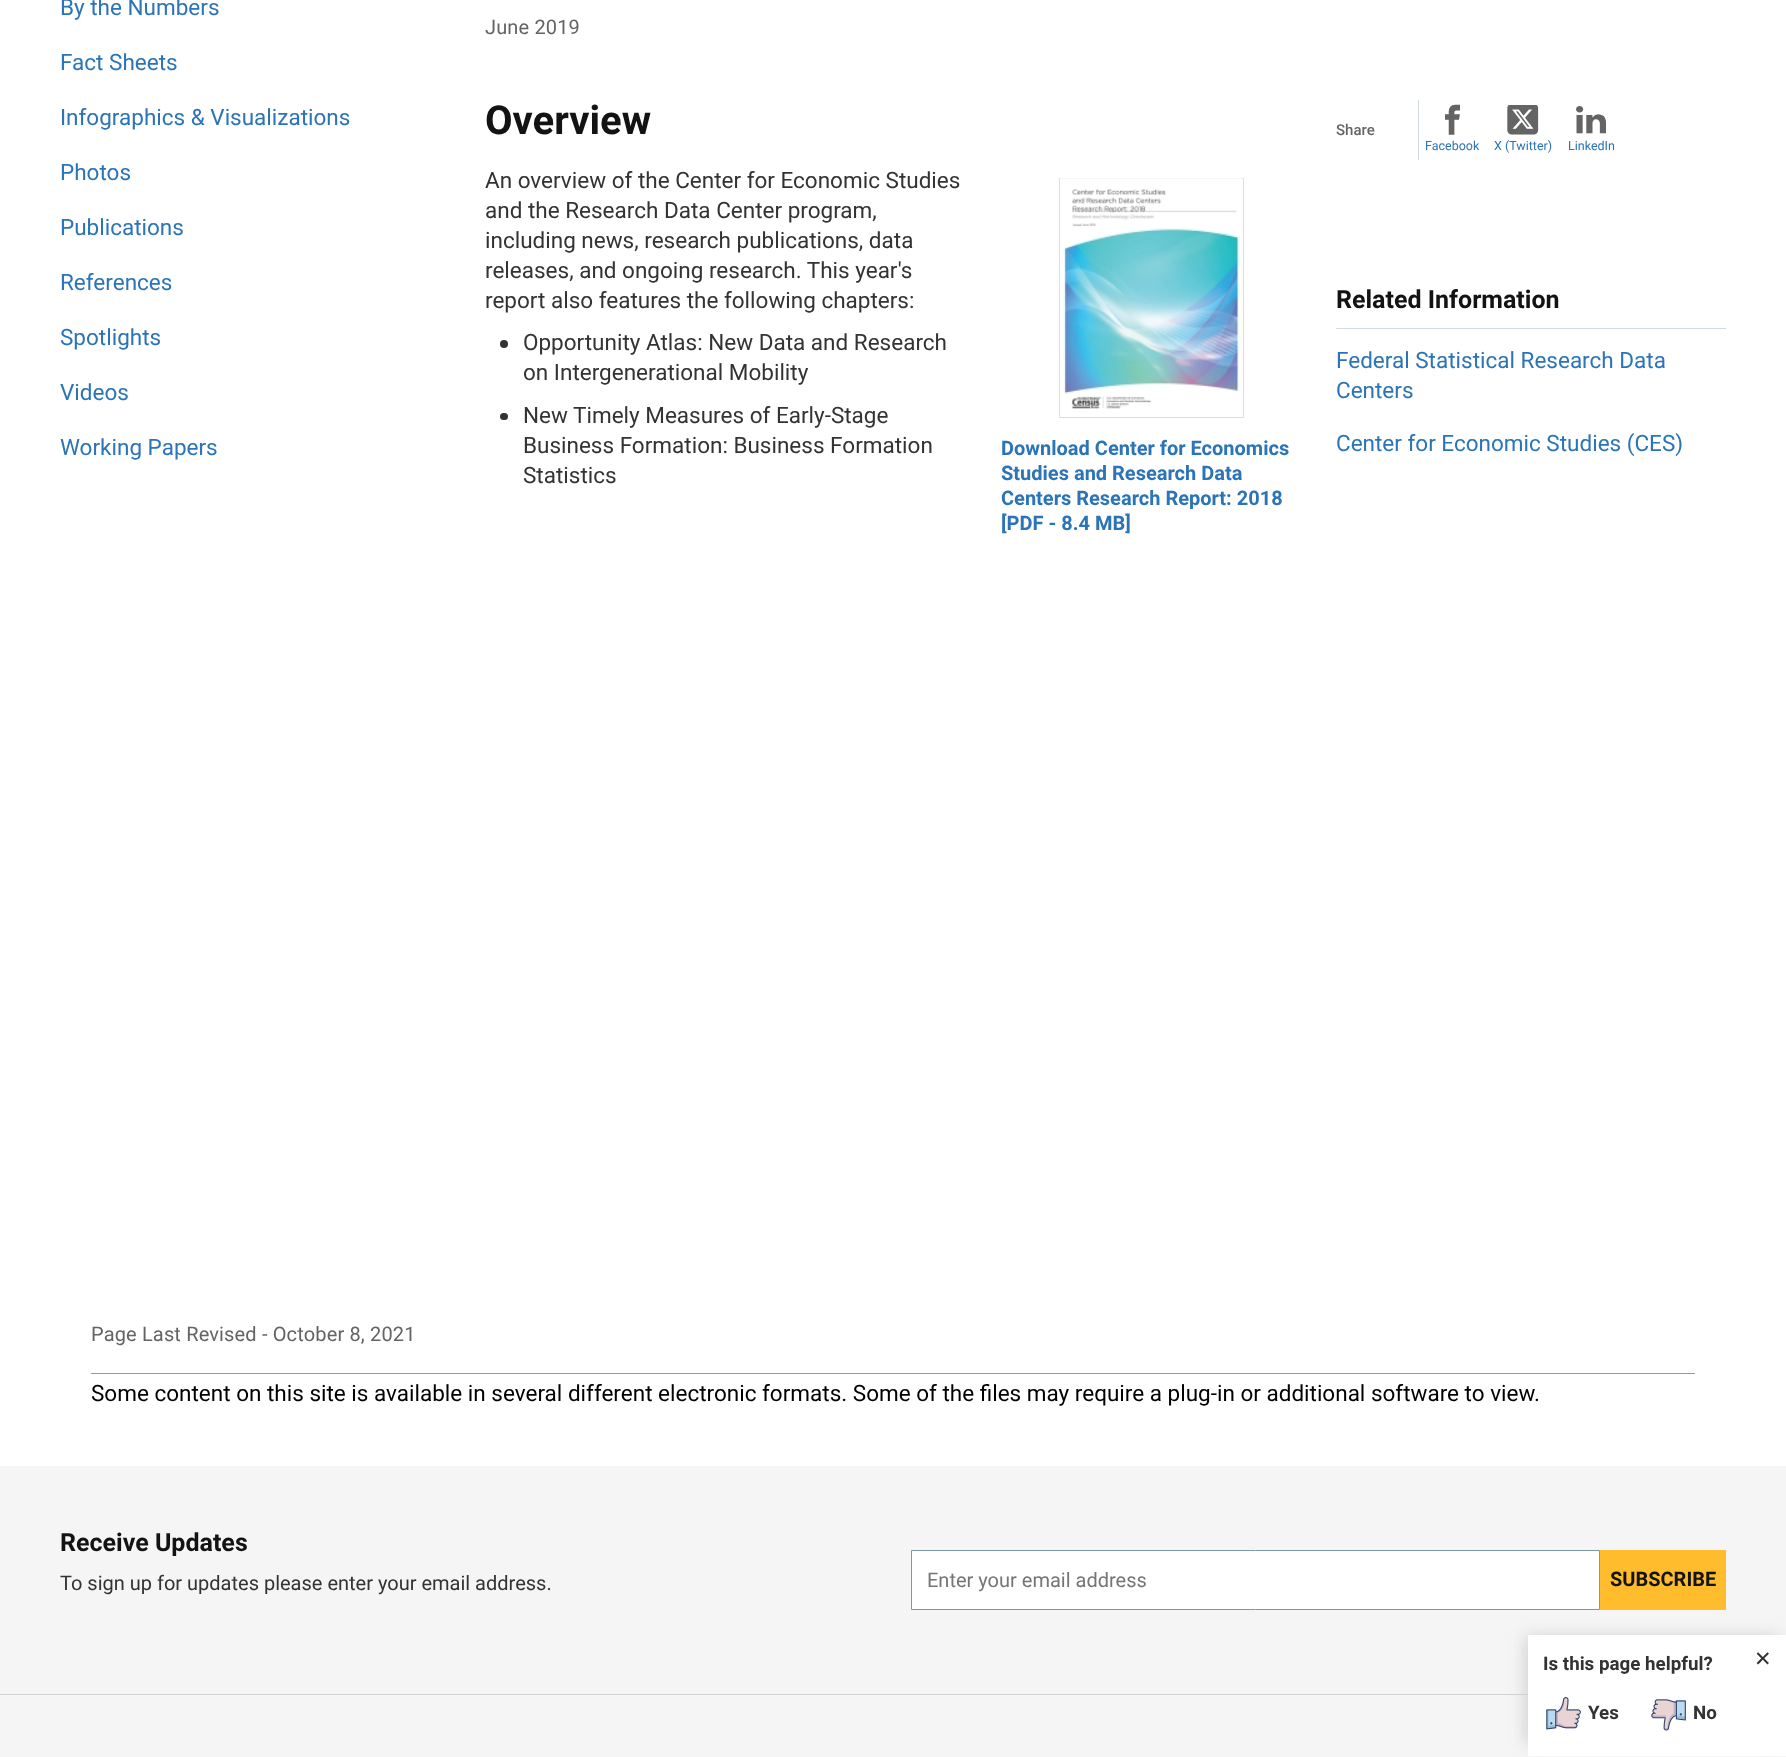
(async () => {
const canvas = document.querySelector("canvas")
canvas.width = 1786
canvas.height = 1757
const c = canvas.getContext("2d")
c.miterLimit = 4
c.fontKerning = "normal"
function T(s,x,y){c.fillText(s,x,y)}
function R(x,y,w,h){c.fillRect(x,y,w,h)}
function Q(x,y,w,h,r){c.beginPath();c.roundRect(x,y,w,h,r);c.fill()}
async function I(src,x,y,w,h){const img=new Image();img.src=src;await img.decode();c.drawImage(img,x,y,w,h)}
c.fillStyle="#fff"
R(0,0,1786,1757)
c.font="22.5px Roboto"
c.fillStyle="#2b74b7"
T("By the Numbers",60,15)
T("Fact Sheets",60,70)
T("Infographics & Visualizations",60,125)
T("Photos",60,180)
T("Publications",60,235)
T("References",60,290)
T("Spotlights",60,345)
T("Videos",60,400)
T("Working Papers",60,455)
c.letterSpacing="0.15px"
c.font="20px Roboto"
c.fillStyle="#646464"
T("June 2019",485,34)
c.letterSpacing="0px"
c.font="bold 40px Roboto"
c.fillStyle="#131313"
T("Overview",485,134)
c.font="22.5px Roboto"
c.fillStyle="#333"
T("An overview of the Center for Economic Studies",485,188)
T("and the Research Data Center program,",485,218)
T("including news, research publications, data",485,248)
T("releases, and ongoing research. This year's",485,278)
T("report also features the following chapters:",485,308)
c.beginPath()
c.arc(504,344,4,0,7)
c.fill()
T("Opportunity Atlas: New Data and Research",523,350)
T("on Intergenerational Mobility",523,380)
Q(500,413,8,7,3.5)
T("New Timely Measures of Early-Stage",523,423)
T("Business Formation: Business Formation",523,453)
T("Statistics",523,483)
c.strokeStyle="#dbdfe2"
c.strokeRect(1059.5,178.5,184,239)
await I("1.png",1060,178,183,231)
c.font="bold 20px Roboto"
c.fillStyle="#2b74b7"
T("Download Center for Economics",1001,455)
T("Studies and Research Data",1001,480)
T("Centers Research Report: 2018",1001,505)
T("[PDF - 8.4 MB]",1001,530)
c.font="500 15px Roboto"
c.fillStyle="#646464"
T("Share",1336,135)
c.fillStyle="#d0dce1"
R(1418,100,1,60)
c.font="30px '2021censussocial'"
c.fillStyle="#646464"
T("﫠",1445,131)
c.font="12.5px Roboto"
c.fillStyle="#2b74b7"
T("Facebook",1425,150)
await I("2.png",1507,105,32,30)
T("X (Twitter)",1494,150)
c.font="30px '2021censussocial'"
c.fillStyle="#646464"
T("﫦",1576,131)
c.font="12.5px Roboto"
c.fillStyle="#2b74b7"
T("LinkedIn",1568,150)
c.font="bold 25px Roboto"
c.fillStyle="#131313"
T("Related Information",1336,308)
c.fillStyle="#d0dce1"
R(1336,328,390,1)
c.font="22.5px Roboto"
c.fillStyle="#2b74b7"
T("Federal Statistical Research Data",1336,368)
T("Centers",1336,398)
T("Center for Economic Studies (CES)",1336,451)
c.letterSpacing="0.15px"
c.font="20px Roboto"
c.fillStyle="#646464"
T("Page Last Revised - October 8, 2021",91,1341)
c.fillStyle="#999"
R(91,1373,1604,1)
c.letterSpacing="0px"
c.font="22.5px Roboto"
c.fillStyle="#000"
T("Some content on this site is available in several different electronic formats. Some of the files may require a plug-in or additional software to view.",91,1401)
c.fillStyle="#f5f5f5"
R(0,1466,1786,291)
c.font="bold 25px Roboto"
c.fillStyle="#131313"
T("Receive Updates",60,1551)
c.font="20px Roboto"
c.fillStyle="#333"
T("To sign up for updates please enter your email address.",60,1590)
c.fillStyle="#fff"
c.beginPath()
c.rect(911.5,1550.5,688,59)
c.fill()
c.strokeStyle="#7e99a6"
c.stroke()
c.fillStyle="#757575"
T("Enter your email address",927,1587)
c.fillStyle="#ffbd2e"
R(1600,1550,126,60)
c.font="bold 20px Roboto"
c.fillStyle="#131313"
T("SUBSCRIBE",1610,1586)
c.fillStyle="#d1d1d1"
R(0,1694,1528,1)
c.filter="blur(7.5px)"
c.beginPath()
c.rect(1525,1636,255,108)
c.fill()
c.filter="none"
c.fillStyle="#fff"
R(1528,1635,258,121)
c.font="bold 18.75px Roboto"
c.fillStyle="#333"
T("Is this page helpful?",1543,1670)
await I("3.png",1546,1697,35,33)
T("Yes",1588,1719)
await I("4.png",1651,1699,35,32)
T("No",1693,1719)
c.font="21px DejaVu Sans"
T("✕",1754,1666)
})()
